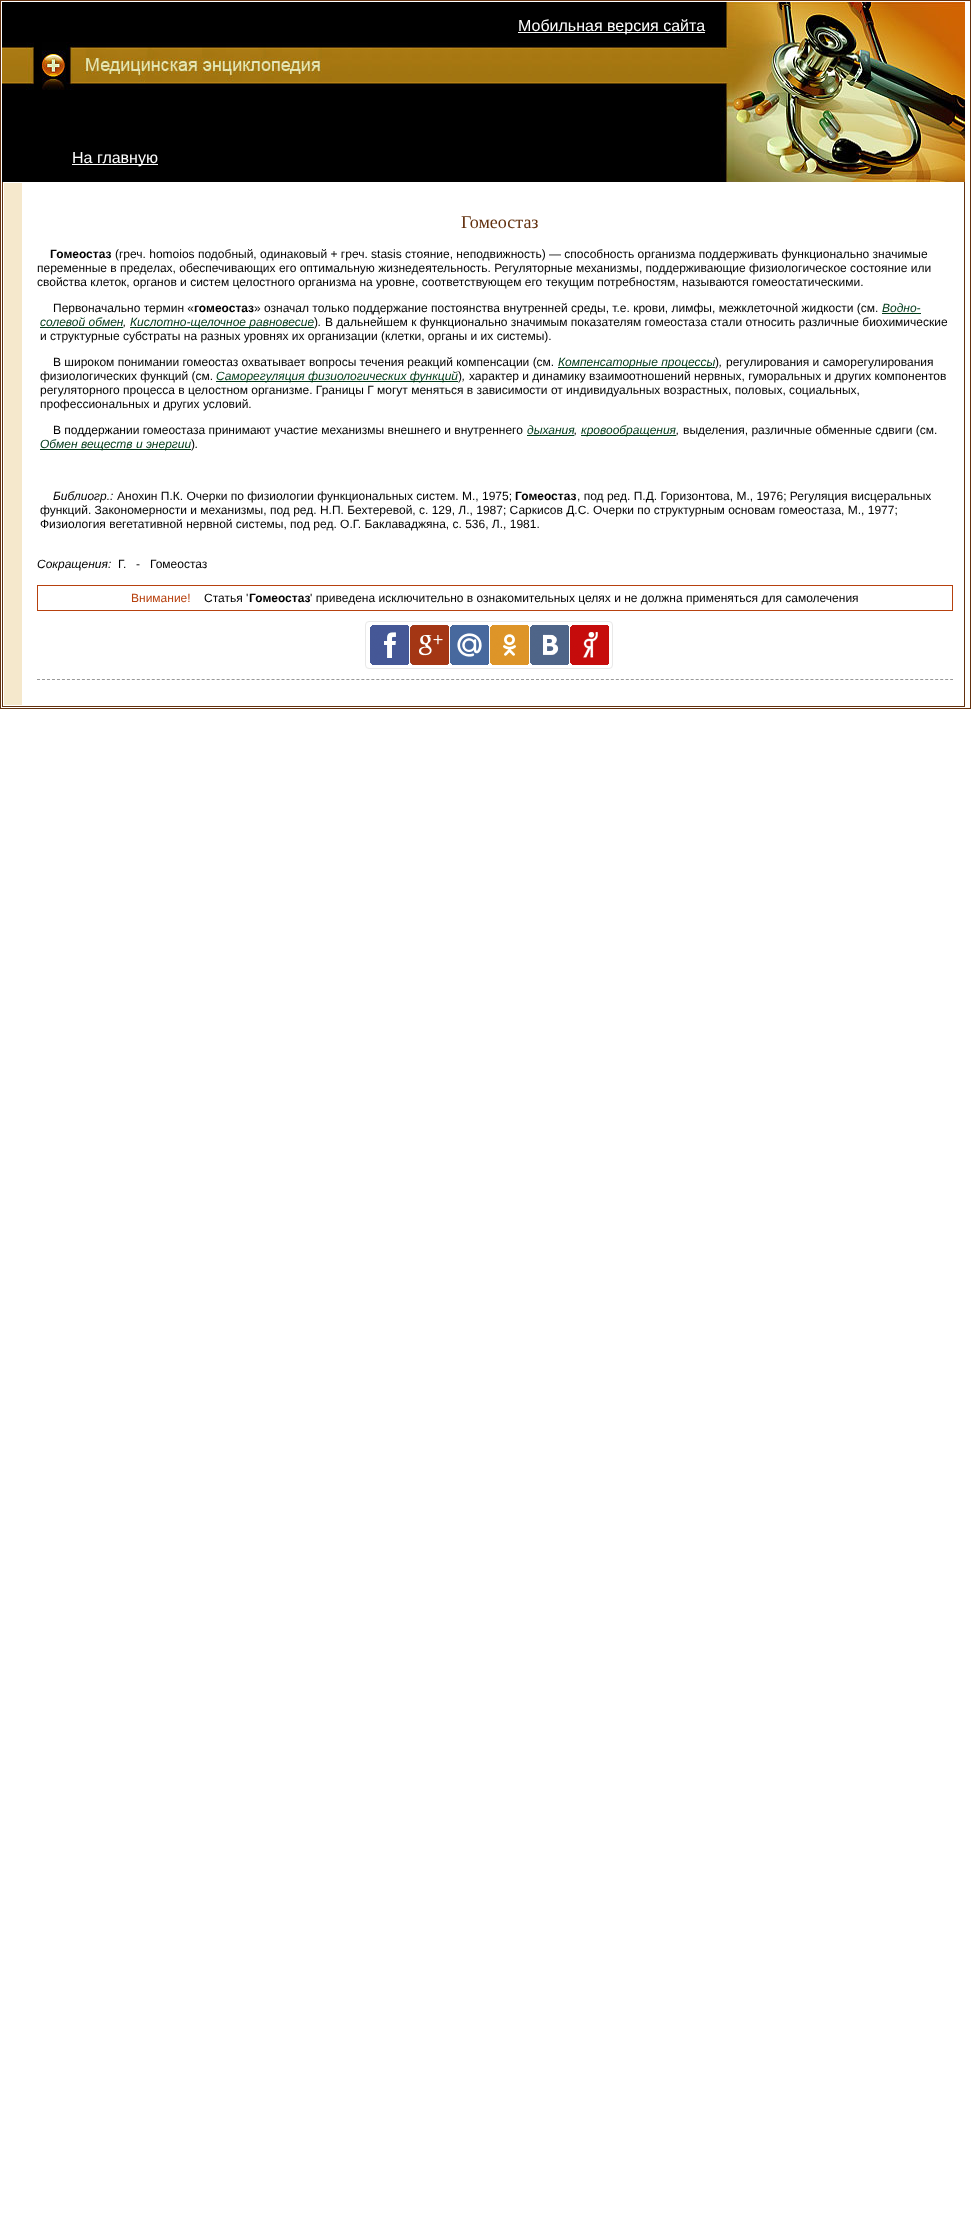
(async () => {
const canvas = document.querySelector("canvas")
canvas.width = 971
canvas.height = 2222
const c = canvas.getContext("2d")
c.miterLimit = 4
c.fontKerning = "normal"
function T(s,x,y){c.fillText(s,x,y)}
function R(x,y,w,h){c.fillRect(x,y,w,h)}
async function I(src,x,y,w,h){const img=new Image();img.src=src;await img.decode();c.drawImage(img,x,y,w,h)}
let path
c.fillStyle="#fff"
R(0,0,971,2222)
c.strokeStyle="#62300e"
c.strokeRect(.5,.5,970,708)
await I("1.png",332,2,388,180)
R(518,32,187,1)
c.font="16px Liberation Sans"
T("Мобильная версия сайта",518,31)
await I("2.png",720,2,245,180)
c.fillStyle="#000"
R(2,2,330,40)
await I("3.png",2,42,330,48)
R(2,90,330,92)
c.fillStyle="#fff"
R(72,164,86,1)
T("На главную",72,163)
c.fillStyle="#62300e"
R(964,182,1,525)
R(2,706,963,1)
R(2,182,1,525)
c.fillStyle="#f5e8cc"
R(4,183,18,522)
c.font="18px Liberation Serif"
c.fillStyle="#62300e"
T("Гомеостаз",461,228)
c.font="bold 12px Liberation Sans"
c.fillStyle="#000"
T("Гомеостаз",50,258)
c.font="12px Liberation Sans"
T("(греч. homoios подобный, одинаковый + греч. stasis стояние, неподвижность) — способность организма поддерживать функционально значимые",115,258)
T("переменные в пределах, обеспечивающих его оптимальную жизнедеятельность. Регуляторные механизмы, поддерживающие физиологическое состояние или",37,272)
T("свойства клеток, органов и систем целостного организма на уровне, соответствующем его текущим потребностям, называются гомеостатическими.",37,286)
T("Первоначально термин «",53,312)
c.font="bold 12px Liberation Sans"
T("гомеостаз",194,312)
c.font="12px Liberation Sans"
T("» означал только поддержание постоянства внутренней среды, т.е. крови, лимфы, межклеточной жидкости (см.",254,312)
c.font="italic 12px Liberation Sans"
c.fillStyle="#003918"
T("Водно-",882,312)
R(882,313,39,1)
T("солевой обмен",40,326)
c.fillStyle="#000"
T(",",123,326)
c.fillStyle="#003918"
R(40,327,83,1)
R(130,327,184,1)
T("Кислотно-щелочное равновесие",130,326)
c.font="12px Liberation Sans"
c.fillStyle="#000"
T(")",314,326)
c.font="italic 12px Liberation Sans"
T(".",318,326)
c.font="12px Liberation Sans"
T("В дальнейшем к функционально значимым показателям гомеостаза стали относить различные биохимические",325,326)
T("и структурные субстраты на разных уровнях их организации (клетки, органы и их системы).",40,340)
T("В широком понимании гомеостаз охватывает вопросы течения реакций компенсации (см.",53,366)
c.fillStyle="#003918"
R(558,367,157,1)
c.font="italic 12px Liberation Sans"
T("Компенсаторные процессы",558,366)
c.font="12px Liberation Sans"
c.fillStyle="#000"
T(")",715,366)
c.font="italic 12px Liberation Sans"
T(",",719,366)
c.font="12px Liberation Sans"
T("регулирования и саморегулирования",726,366)
T("физиологических функций (см.",40,380)
c.fillStyle="#003918"
R(216,381,242,1)
c.font="italic 12px Liberation Sans"
T("Саморегуляция физиологических функций",216,380)
c.font="12px Liberation Sans"
c.fillStyle="#000"
T(")",458,380)
c.font="italic 12px Liberation Sans"
T(",",462,380)
c.font="12px Liberation Sans"
T("характер и динамику взаимоотношений нервных, гуморальных и других компонентов",469,380)
T("регуляторного процесса в целостном организме. Границы Г могут меняться в зависимости от индивидуальных возрастных, половых, социальных,",40,394)
T("профессиональных и других условий.",40,408)
T("В поддержании гомеостаза принимают участие механизмы внешнего и внутреннего",53,434)
c.font="italic 12px Liberation Sans"
c.fillStyle="#003918"
T("дыхания",527,434)
c.fillStyle="#000"
T(",",574,434)
c.fillStyle="#003918"
R(527,435,47,1)
R(581,435,95,1)
T("кровообращения",581,434)
c.fillStyle="#000"
T(",",676,434)
c.font="12px Liberation Sans"
T("выделения, различные обменные сдвиги (см.",683,434)
c.fillStyle="#003918"
R(40,449,151,1)
c.font="italic 12px Liberation Sans"
T("Обмен веществ и энергии",40,448)
c.font="12px Liberation Sans"
c.fillStyle="#000"
T(")",191,448)
c.font="italic 12px Liberation Sans"
T(".",195,448)
T("Библиогр.:",53,500)
c.font="12px Liberation Sans"
T("Анохин П.К. Очерки по физиологии функциональных систем. М., 1975;",117,500)
c.font="bold 12px Liberation Sans"
T("Гомеостаз",515,500)
c.font="12px Liberation Sans"
T(", под ред. П.Д. Горизонтова, М., 1976; Регуляция висцеральных",577,500)
T("функций. Закономерности и механизмы, под ред. Н.П. Бехтеревой, с. 129, Л., 1987; Саркисов Д.С. Очерки по структурным основам гомеостаза, М., 1977;",40,514)
T("Физиология вегетативной нервной системы, под ред. О.Г. Баклаваджяна, с. 536, Л., 1981.",40,528)
c.font="italic 12px Liberation Sans"
T("Сокращения:",37,568)
c.font="12px Liberation Sans"
T("Г.",118,568)
T("-   Гомеостаз",136,568)
c.strokeStyle="#b7410e"
c.strokeRect(37.5,585.5,915,25)
c.fillStyle="#b7410e"
T("Внимание!",131,602)
c.fillStyle="#000"
T("Статья '",204,602)
c.font="bold 12px Liberation Sans"
T("Гомеостаз",249,602)
c.font="12px Liberation Sans"
T("' приведена исключительно в ознакомительных целях и не должна применяться для самолечения",310,602)
c.beginPath()
c.roundRect(365.5,621.5,247,47,3.5)
c.strokeStyle="#e9e9e9"
c.stroke()
await I("4.png",370,625,39,40)
await I("5.png",410,625,39,40)
await I("6.png",450,625,39,40)
await I("7.png",490,625,39,40)
await I("8.png",530,625,39,40)
await I("9.png",570,625,39,40)
path = new Path2D("M37 679.5h916")
c.strokeStyle="#999"
c.setLineDash([3,1.99])
c.stroke(path)
})()
